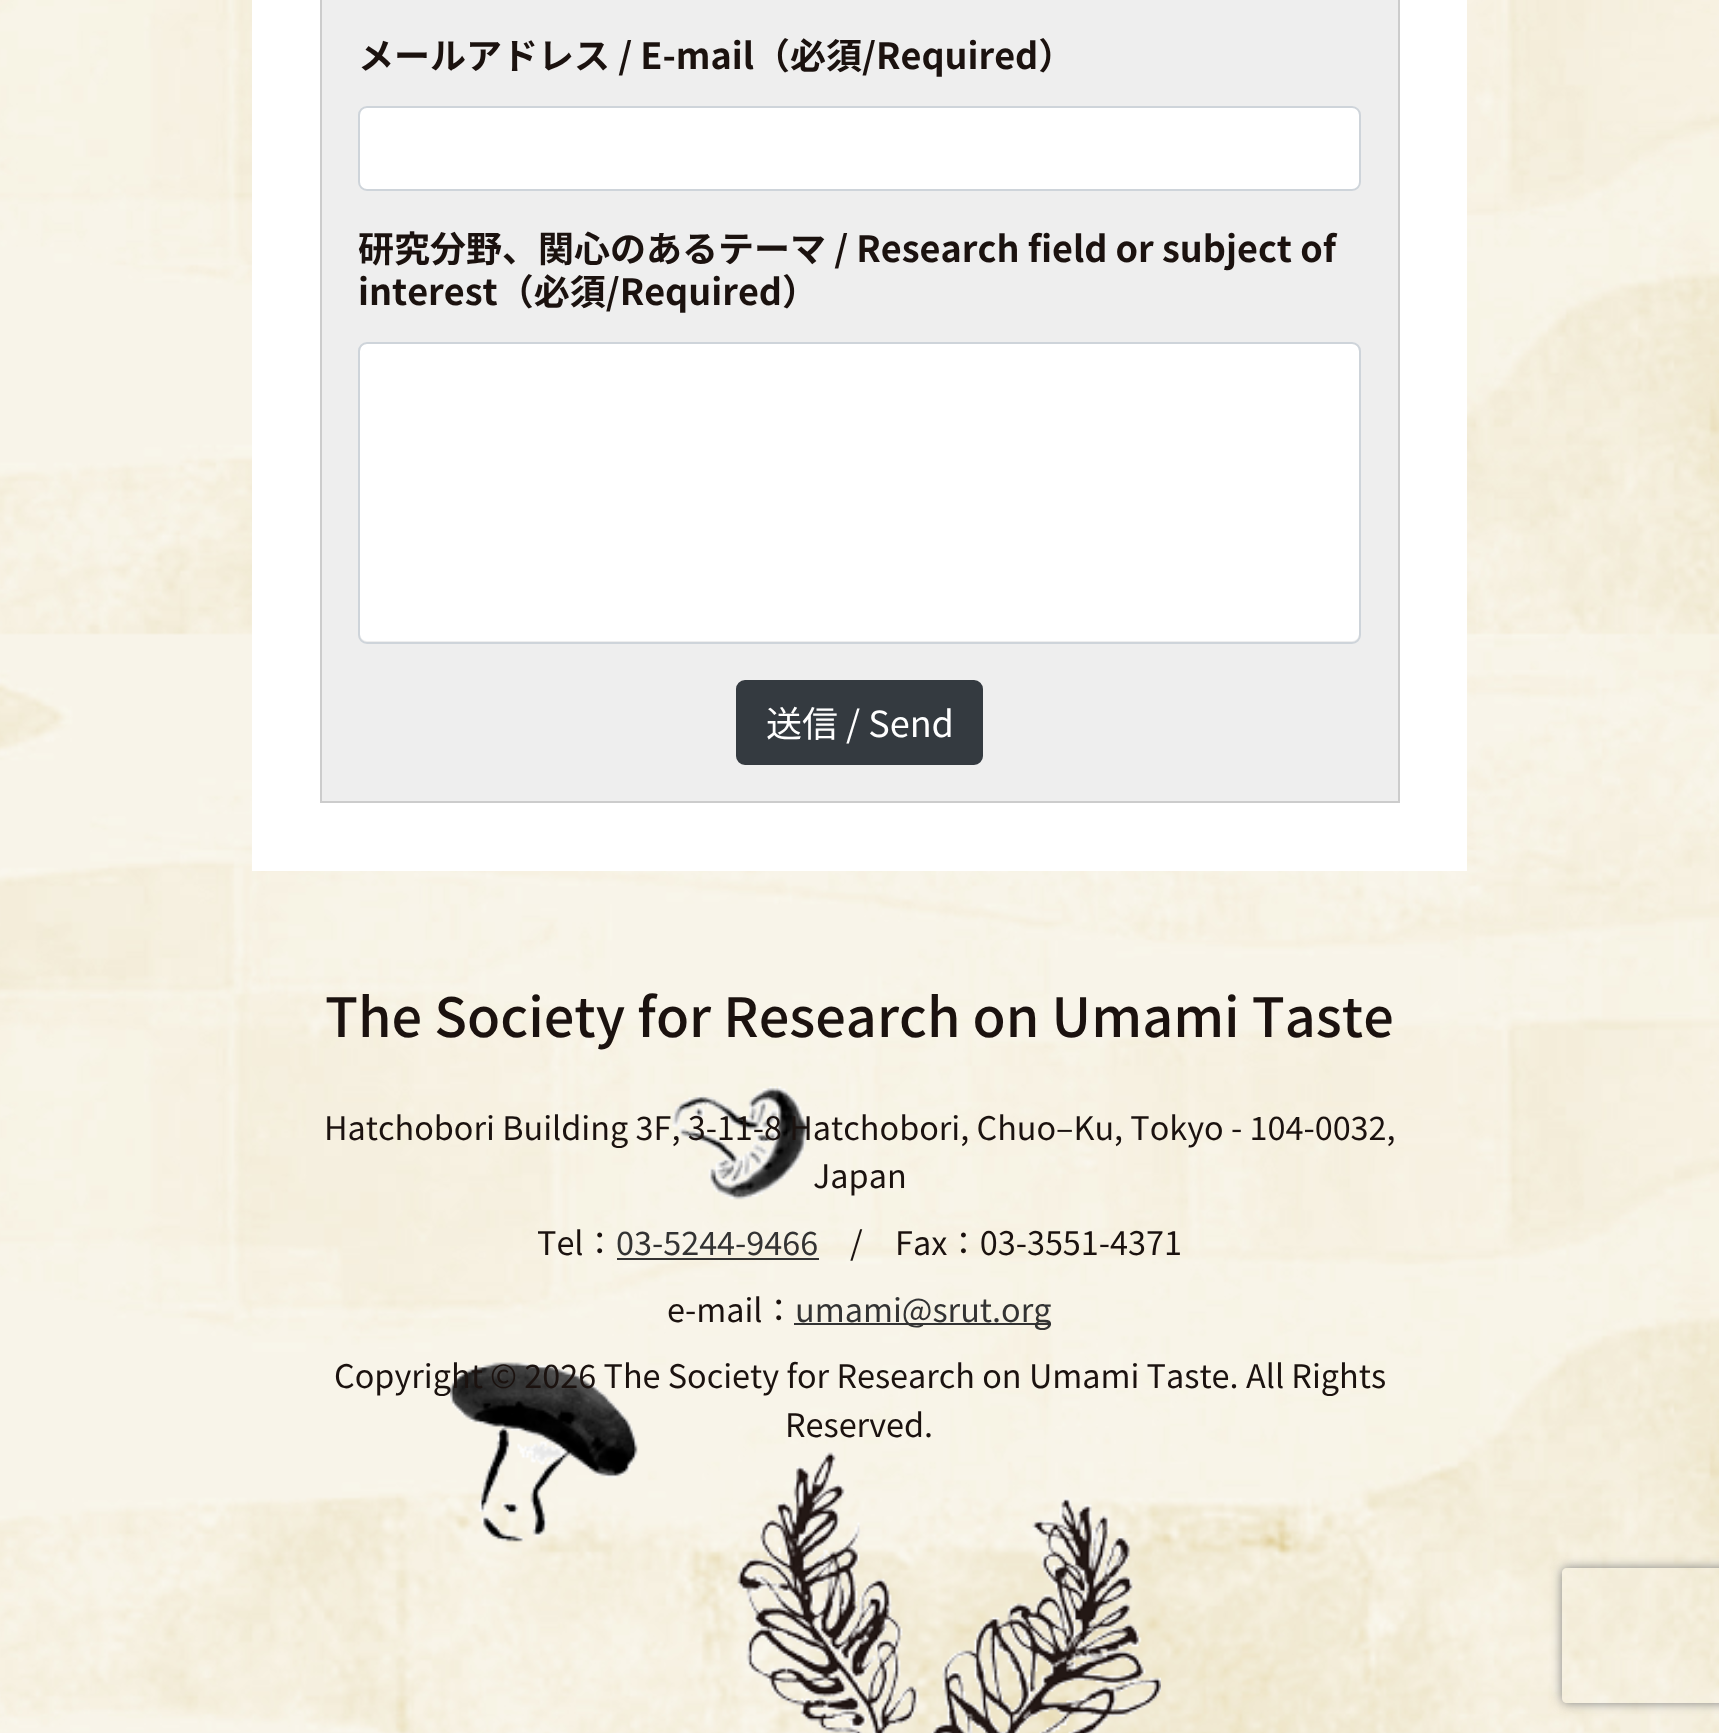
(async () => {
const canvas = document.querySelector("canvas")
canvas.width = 1719
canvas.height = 1733
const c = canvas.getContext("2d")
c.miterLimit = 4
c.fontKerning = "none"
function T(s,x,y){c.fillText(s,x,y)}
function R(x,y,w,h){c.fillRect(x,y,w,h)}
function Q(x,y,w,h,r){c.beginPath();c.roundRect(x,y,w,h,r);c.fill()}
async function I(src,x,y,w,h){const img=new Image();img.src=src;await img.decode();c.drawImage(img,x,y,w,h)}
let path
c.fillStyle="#fff"
R(0,0,1719,1733)
await I("1.png",0,0,1719,1733)
R(252,0,1215,871)
c.fillStyle="#eee"
c.beginPath()
c.rect(321,-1,1078,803)
c.fill()
c.strokeStyle="#ccc"
c.lineWidth=2
c.stroke()
c.font="bold 36px Noto Sans JP"
c.fillStyle="#1b120f"
T("メールアドレス / E-mail（必須/Required）",358,69)
c.fillStyle="#fff"
c.beginPath()
c.roundRect(359,107,1001,83,8)
c.fill()
c.strokeStyle="#ced4da"
c.stroke()
c.fillStyle="#1b120f"
T("研究分野、関心のあるテーマ / Research field or subject of",358,262)
T("interest（必須/Required）",358,305)
c.fillStyle="#fff"
Q(360,344,999,297,7)
c.beginPath()
c.roundRect(359,343,1001,300,8)
c.stroke()
c.fillStyle="#343a40"
c.beginPath()
c.roundRect(737,681,245,83,8)
c.fill()
c.strokeStyle="#343a40"
c.stroke()
c.font="36px Noto Sans JP"
c.fillStyle="#fff"
T("送信 / Send",766,737)
await I("2.png",450,1086,711,647)
c.font="500 54px Noto Sans JP"
c.fillStyle="#1b120f"
T("The Society for Research on Umami Taste",325,1037)
c.font="32.4px Noto Sans JP"
T("Hatchobori Building 3F, 3-11-8 Hatchobori, Chuo–Ku, Tokyo",324,1140)
T("- 104-0032,",1231,1140)
T("Japan",813,1188)
T("Tel：",537,1255)
c.fillStyle="#333"
T("03-5244-9466",616,1255)
R(617,1258,202,2)
c.fillStyle="#1b120f"
T("/　Fax：03-3551-4371",850,1255)
T("e-mail：",667,1322)
c.fillStyle="#333"
R(794,1323,257,2)
T("umami@srut.org",795,1322)
c.fillStyle="#1b120f"
T("Copyright © 2026 The Society for Research on Umami Taste.",334,1388)
T("All Rights",1246,1388)
T("Reserved.",785,1437)
c.save()
path = new Path2D("M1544 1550h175v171h-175zm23 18h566c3 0 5 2 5 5v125c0 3-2 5-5 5h-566c-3 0-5-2-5-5v-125c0-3 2-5 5-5z")
c.clip(path,"evenodd")
c.fillStyle="#808080"
c.filter="blur(5.5px)"
c.beginPath()
c.roundRect(1562,1568,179,135,5)
c.fill()
c.filter="none"
c.restore()
})()
